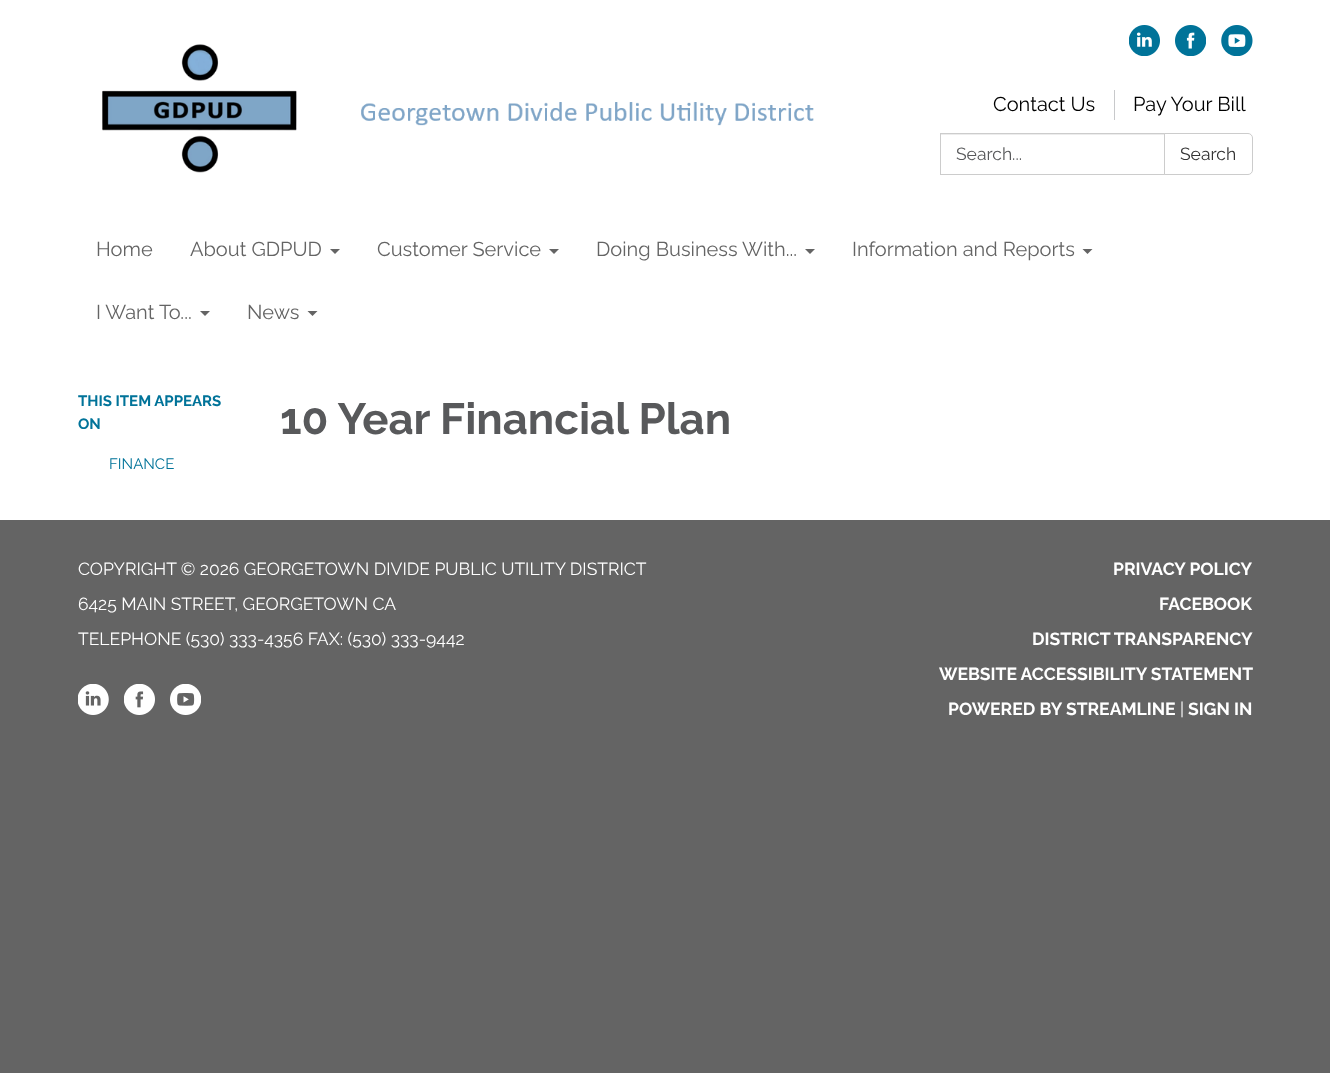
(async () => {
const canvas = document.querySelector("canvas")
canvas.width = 1330
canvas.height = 1073
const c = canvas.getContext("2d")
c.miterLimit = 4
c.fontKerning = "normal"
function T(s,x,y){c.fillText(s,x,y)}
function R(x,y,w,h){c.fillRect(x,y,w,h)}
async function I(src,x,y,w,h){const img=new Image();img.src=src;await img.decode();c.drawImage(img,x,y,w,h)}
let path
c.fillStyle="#646464"
R(0,0,1330,1073)
c.fillStyle="#fff"
R(0,0,1330,219)
await I("1.png",1129,25,31,31)
await I("2.png",1175,25,31,31)
await I("3.png",1221,25,32,31)
await I("4.png",102,44,712,129)
c.font="20px Raleway"
c.fillStyle="#000"
T("Contact Us",993,111)
c.fillStyle="#c8c9cb"
R(1114,90,1,30)
c.fillStyle="#000"
T("Pay Your Bill",1133,111)
c.fillStyle="#ececec"
R(941,134,223,1)
c.strokeStyle="#ccc"
c.strokeRect(940.5,133.5,224,41)
c.font="17.5px Raleway"
c.fillStyle="#58595b"
T("Search...",956,160)
c.fillStyle="#fff"
c.beginPath()
c.roundRect(1164.5,133.5,88,41,[0,4.5,4.5,0])
c.fill()
c.stroke()
c.fillStyle="#333"
T("Search",1180,160)
c.fillStyle="#fff"
R(0,219,1330,301)
c.font="20px Raleway"
c.fillStyle="#646464"
T("Home",96,256)
T("About GDPUD",190,256)
path = new Path2D("M330 249h10l-5 5z")
c.fill(path)
T("Customer Service",377,256)
path = new Path2D("M549 249h10l-5 5z")
c.fill(path)
T("Doing Business With...",596,256)
path = new Path2D("M805 249h10l-5 5z")
c.fill(path)
T("Information and Reports",852,256)
path = new Path2D("M1082.5 249h10l-5 5z")
c.fill(path)
T("I Want To...",96,319)
path = new Path2D("M200 311h10l-5 5z")
c.fill(path)
T("News",247,319)
path = new Path2D("M307.5 311h10l-5 5z")
c.fill(path)
c.font="bold 15px Raleway"
c.fillStyle="#007399"
T("THIS ITEM APPEARS",78,406)
T("ON",78,429)
c.font="15px Raleway"
T("FINANCE",109,469)
c.font="bold 43.75px Raleway"
c.fillStyle="#58595b"
T("10 Year Financial Plan",280,434)
c.font="17.5px Raleway"
c.fillStyle="#fff"
T("COPYRIGHT © 2026 GEORGETOWN DIVIDE PUBLIC UTILITY DISTRICT",78,575)
T("6425 MAIN STREET, GEORGETOWN CA",78,610)
T("TELEPHONE (530) 333-4356 FAX: (530) 333-9442",78,645)
await I("5.png",78,684,31,31)
await I("6.png",124,684,31,31)
await I("7.png",170,684,31,31)
c.font="bold 17.5px Raleway"
T("PRIVACY POLICY",1113,575)
T("FACEBOOK",1159,610)
T("DISTRICT TRANSPARENCY",1032,645)
T("WEBSITE ACCESSIBILITY STATEMENT",939,680)
T("POWERED BY STREAMLINE",948,715)
c.font="17.5px Raleway"
T("|",1180,715)
c.font="bold 17.5px Raleway"
T("SIGN IN",1188,715)
})()
